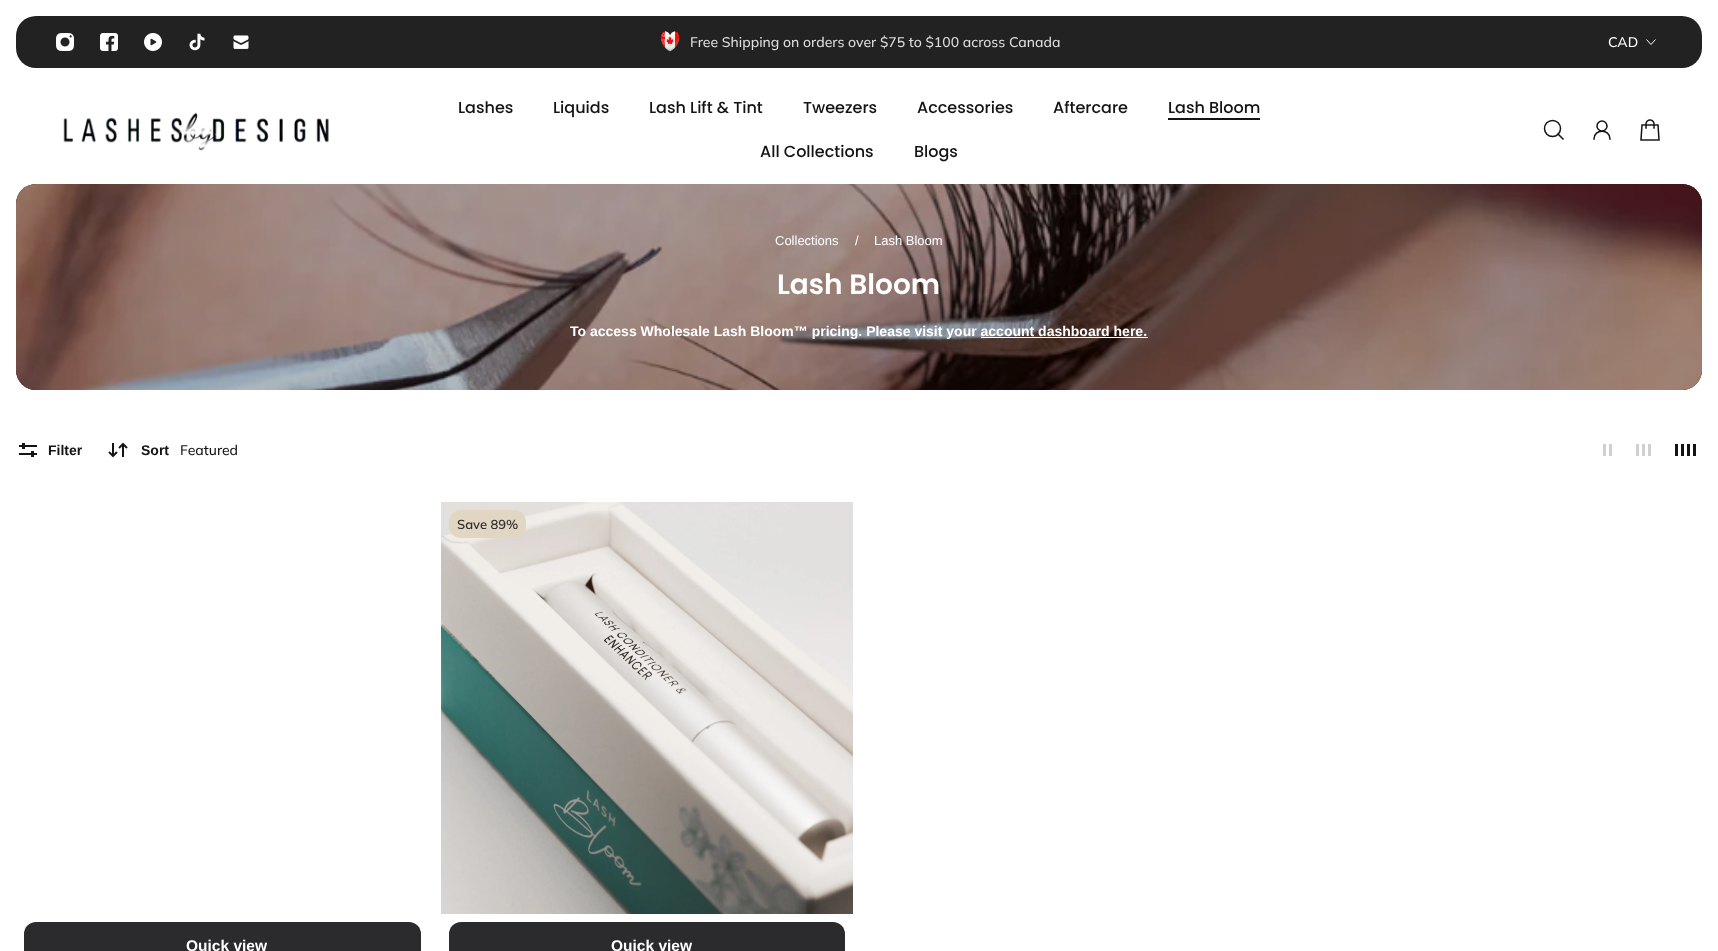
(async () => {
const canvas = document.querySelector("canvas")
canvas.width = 1718
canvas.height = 951
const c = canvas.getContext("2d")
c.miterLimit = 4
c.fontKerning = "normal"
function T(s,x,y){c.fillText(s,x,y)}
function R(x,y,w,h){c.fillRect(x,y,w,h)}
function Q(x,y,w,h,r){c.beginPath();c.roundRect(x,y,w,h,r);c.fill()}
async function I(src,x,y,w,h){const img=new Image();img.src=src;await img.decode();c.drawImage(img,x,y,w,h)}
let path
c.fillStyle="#fff"
R(0,0,1718,951)
c.fillStyle="#222"
Q(16,16,1686,52,20)
await I("1.png",56,33,18,18)
await I("2.png",100,33,18,18)
await I("3.png",144,33,18,18)
await I("4.png",189,33,16,18)
await I("5.png",233,35,16,14)
await I("6.png",660,31,20,21)
c.font="500 14px Muli"
c.fillStyle="#dedede"
T("Free Shipping on orders over $75 to $100 across Canada",690,47)
c.fillStyle="#fff"
T("CAD",1608,47)
path = new Path2D("M1655.5 39.5l-4.5 5l-4.5-5")
c.strokeStyle="#fff"
c.stroke(path)
await I("7.png",63,112,266,39)
c.font="500 16px Poppins"
c.fillStyle="#141416"
T("Lashes",458,113)
T("Liquids",553,113)
T("Lash Lift & Tint",649,113)
T("Tweezers",803,113)
T("Accessories",917,113)
T("Aftercare",1053,113)
T("Lash Bloom",1168,113)
R(1168,118,92,2)
T("All Collections",760,157)
T("Blogs",914,157)
c.beginPath()
c.arc(1552.5,128.5,8,0,7)
c.strokeStyle="#141416"
c.lineWidth=1.5
c.stroke()
path = new Path2D("M1558 134l5 5")
c.lineCap="square"
c.lineJoin="round"
c.stroke(path)
c.beginPath()
c.arc(1602,126,5,0,7)
c.stroke()
path = new Path2D("M1610 139c0-10.5-16-10.5-16 0")
c.stroke(path)
await I("8.png",1640,119,20,22)
c.fillStyle="#000"
Q(16,184,1686,206,20)
await I("9.png",16,184,1686,206)
c.fillStyle="#00000040"
Q(16,184,1686,206,20)
c.font="13px Liberation Sans"
c.fillStyle="#fff"
T("Collections",775,245)
T("/",855,245)
T("Lash Bloom",874,245)
c.font="600 28px Poppins"
T("Lash Bloom",777,294)
c.font="bold 14px Liberation Sans"
T("To access Wholesale Lash Bloom™ pricing. Please visit your account dashboard here.",570,336)
R(981,337,167,1)
c.fillStyle="#141416"
R(19,445,18,2)
R(19,453,18,2)
R(22,443,3,6)
R(31,451,3,6)
T("Filter",48,455)
await I("10.png",108,442,20,16)
T("Sort",141,455)
c.font="500 14px Muli"
T("Featured",180,455)
c.fillStyle="#d0d0d0"
R(1603,444,3,12)
R(1609,444,3,12)
R(1636,444,3,12)
R(1642,444,3,12)
R(1648,444,3,12)
c.fillStyle="#141416"
R(1675,444,3,12)
R(1681,444,3,12)
R(1687,444,3,12)
R(1693,444,3,12)
c.fillStyle="#141416e6"
Q(24,922,397,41,12)
c.font="bold 15.5px Liberation Sans"
c.fillStyle="#fff"
T("Quick view",186,951)
await I("11.png",441,502,412,412)
c.fillStyle="#e1d6c1"
Q(449,510,77,28,12)
c.font="600 13px Muli"
c.fillStyle="#2d2d2d"
T("Save 89%",457,529)
c.fillStyle="#141416e6"
Q(449,922,396,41,12)
c.font="bold 15.5px Liberation Sans"
c.fillStyle="#fff"
T("Quick view",611,951)
})()
